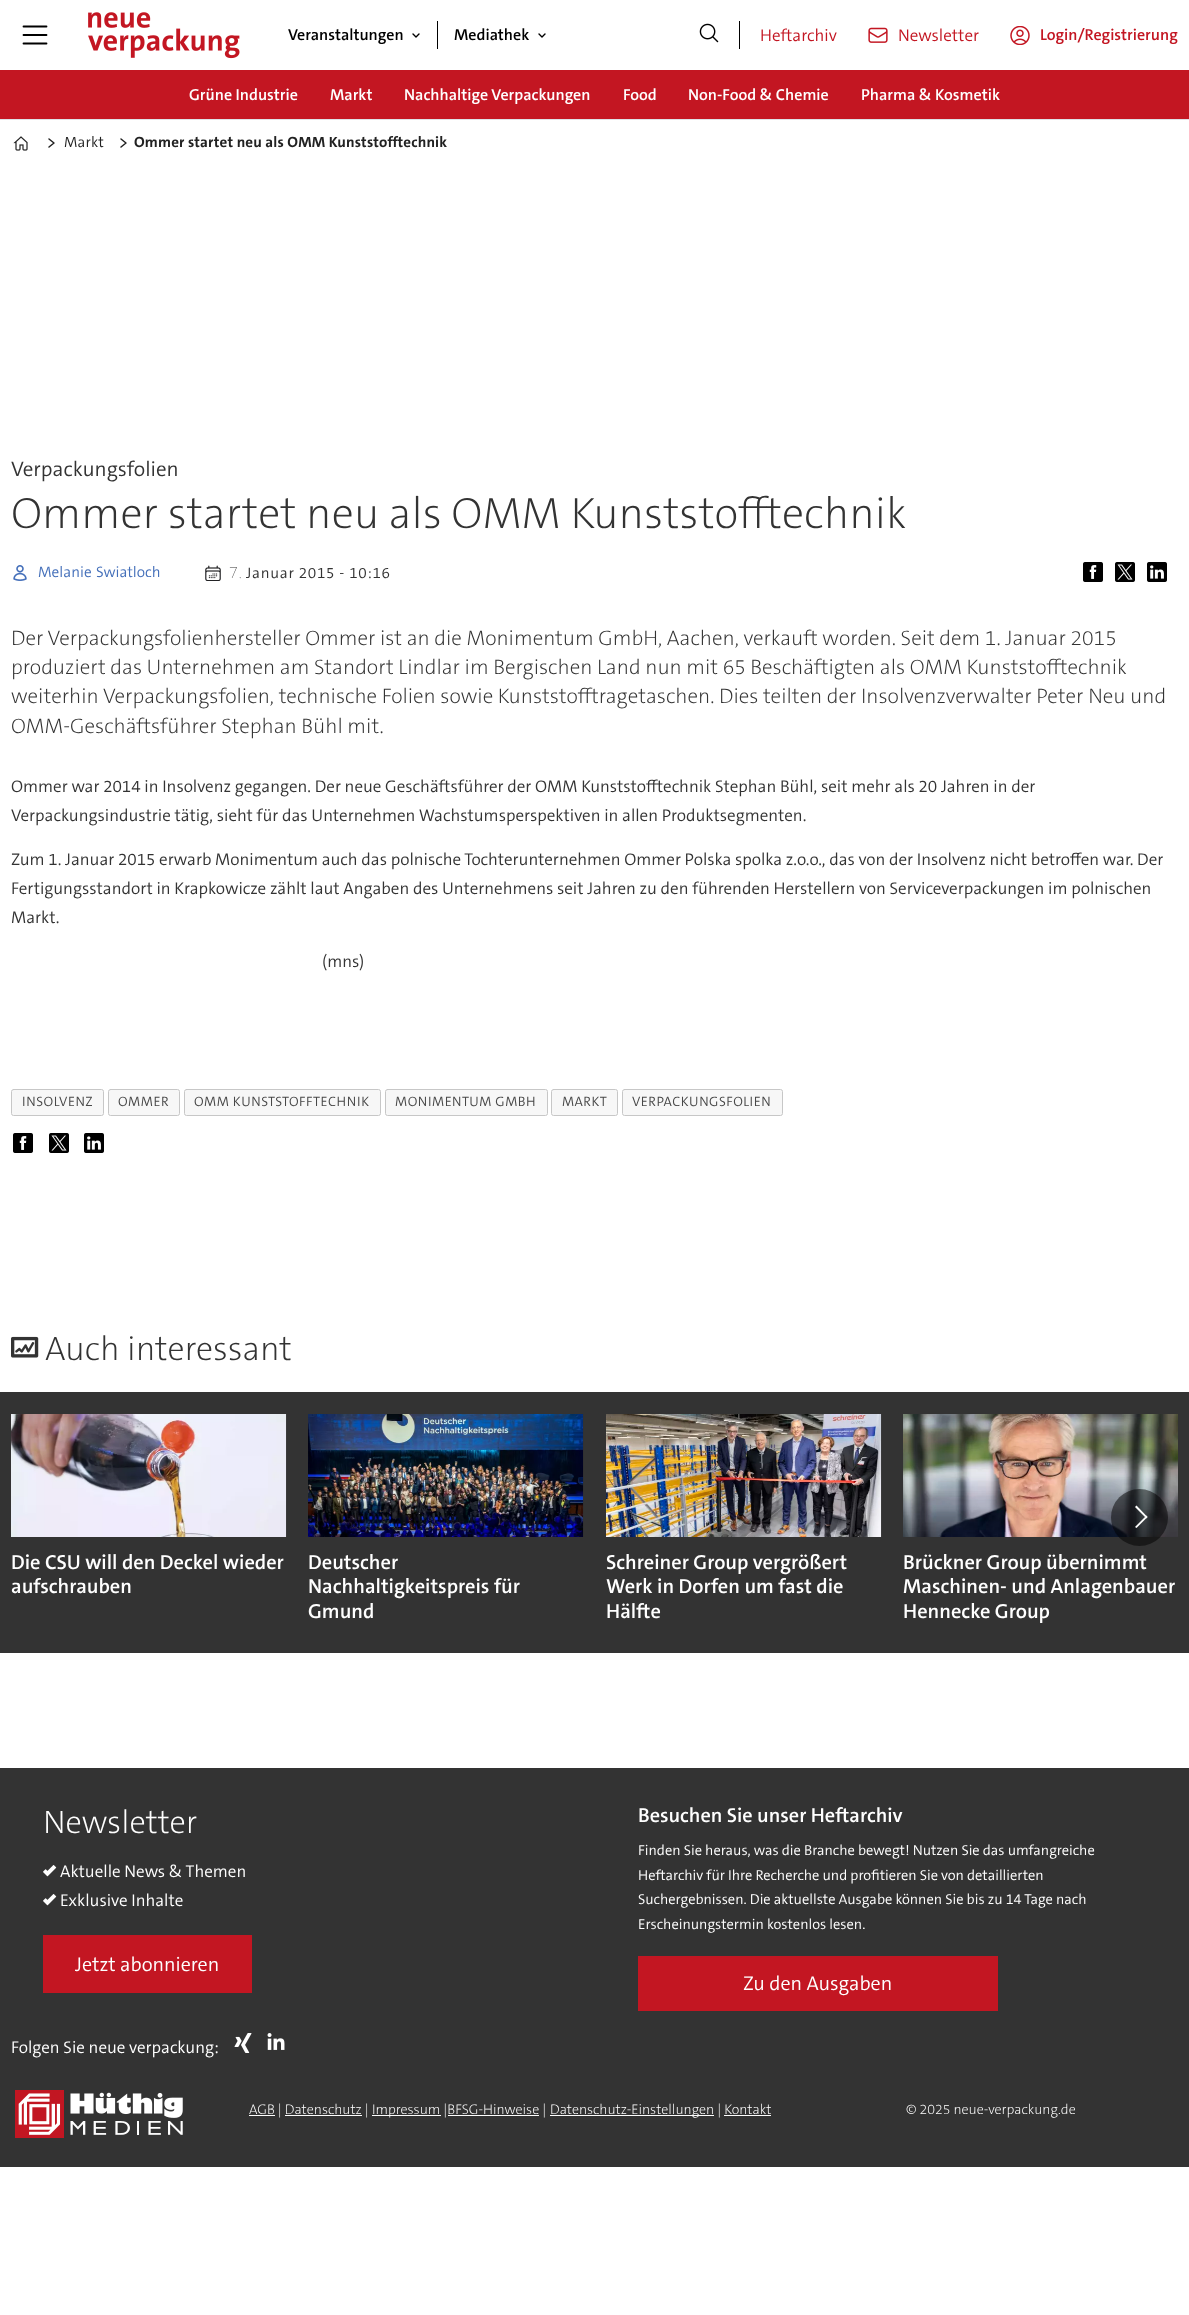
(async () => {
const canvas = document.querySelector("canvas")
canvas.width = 1189
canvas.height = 2315
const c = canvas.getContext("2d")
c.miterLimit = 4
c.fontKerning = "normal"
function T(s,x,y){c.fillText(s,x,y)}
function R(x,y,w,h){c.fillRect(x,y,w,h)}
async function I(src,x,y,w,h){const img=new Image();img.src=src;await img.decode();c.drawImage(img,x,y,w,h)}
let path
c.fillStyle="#fff"
R(0,0,1189,2315)
path = new Path2D("M23.5 26.5h23m-23 8.5h23m-23 8.5h23")
c.strokeStyle="#000"
c.lineWidth=1.8
c.lineCap="round"
c.stroke(path)
await I("1.png",88,12,152,47)
c.fillStyle="#000"
R(437,21,1,28)
c.font="600 16px 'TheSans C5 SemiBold'"
T("Veranstaltungen",288,40)
path = new Path2D("M413 34l3 3l3-3")
c.lineWidth=1.4
c.lineJoin="round"
c.stroke(path)
T("Mediathek",454,40)
path = new Path2D("M539 34l3 3l3-3")
c.stroke(path)
await I("2.png",699,23,20,20)
R(739,21,1,28)
c.font="300 17px 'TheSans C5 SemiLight'"
c.fillStyle="#c31622"
T("Heftarchiv",760,41)
await I("3.png",868,27,20,16)
T("Newsletter",898,41)
await I("4.png",1010,26,20,19)
c.font="600 16px 'TheSans C5 SemiBold'"
T("Login/Registrierung",1040,40)
R(0,70,1189,49)
c.fillStyle="#dee2e6"
R(0,119,1189,1)
c.fillStyle="#fff"
T("Grüne Industrie",189,100)
T("Markt",330,100)
T("Nachhaltige Verpackungen",404,100)
T("Food",623,100)
T("Non-Food & Chemie",688,100)
T("Pharma & Kosmetik",861,100)
await I("5.png",13,136,15,15)
path = new Path2D("M49 139l5 4l-5 4")
c.strokeStyle="#222"
c.lineWidth=1.5
c.stroke(path)
c.letterSpacing="0.15px"
c.font="300 15px 'TheSans C5 SemiLight'"
c.fillStyle="#222"
T("Markt",64,147)
path = new Path2D("M121 139l5 4l-5 4")
c.stroke(path)
c.font="bold 15px 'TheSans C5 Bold'"
T("Ommer startet neu als OMM Kunststofftechnik",134,147)
c.letterSpacing="0px"
c.font="300 21px 'TheSans C5 SemiLight'"
c.fillStyle="#333"
T("Verpackungsfolien",11,476)
c.font="200 44px 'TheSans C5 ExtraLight'"
T("Ommer startet neu als OMM Kunststofftechnik",11,528)
await I("6.png",13,565,14,16)
c.font="300 15.25px 'TheSans C5 SemiLight'"
c.fillStyle="#4570ba"
T("Melanie",38,577)
T("Swiatloch",96,577)
await I("7.png",205,565,16,16)
c.letterSpacing="0.75px"
c.font="100 15.25px Noto Sans"
c.fillStyle="#333"
T("7.",229,578)
c.font="300 15.25px 'TheSans C5 SemiLight'"
T("Januar 2015 - 10:16",246,578)
await I("8.png",1083,562,20,20)
await I("9.png",1115,562,20,20)
await I("10.png",1147,562,20,20)
c.letterSpacing="0px"
c.font="200 21px 'TheSans C5 ExtraLight'"
T("Der Verpackungsfolienhersteller Ommer ist an die Monimentum GmbH, Aachen, verkauft worden. Seit dem 1. Januar 2015",11,645)
T("produziert das Unternehmen am Standort Lindlar im Bergischen Land nun mit 65 Beschäftigten als OMM Kunststofftechnik",11,674)
T("weiterhin Verpackungsfolien, technische Folien sowie Kunststofftragetaschen. Dies teilten der Insolvenzverwalter Peter Neu und",11,703)
T("OMM-Geschäftsführer Stephan Bühl mit.",11,733)
c.font="300 17px 'TheSans C5 SemiLight'"
T("Ommer war 2014 in Insolvenz gegangen. Der neue Geschäftsführer der OMM Kunststofftechnik Stephan Bühl, seit mehr als 20 Jahren in der",11,792)
T("Verpackungsindustrie tätig, sieht für das Unternehmen Wachstumsperspektiven in allen Produktsegmenten.",11,821)
T("Zum 1. Januar 2015 erwarb Monimentum auch das polnische Tochterunternehmen Ommer Polska spolka z.o.o., das von der Insolvenz nicht betroffen war. Der",11,865)
T("Fertigungsstandort in Krapkowicze zählt laut Angaben des Unternehmens seit Jahren zu den führenden Herstellern von Serviceverpackungen im polnischen",11,894)
T("Markt.",11,923)
T("(mns)",322,967)
c.fillStyle="#f7f7f7"
c.beginPath()
c.roundRect(11.5,1089.5,92,26,2)
c.fill()
c.strokeStyle="#c7c7c7"
c.lineWidth=1
c.lineJoin="miter"
c.stroke()
c.letterSpacing="0.5px"
c.font="300 13.6px 'TheSans C5 SemiLight'"
c.fillStyle="#484848"
T("INSOLVENZ",22,1106)
c.fillStyle="#f7f7f7"
c.beginPath()
c.roundRect(108.5,1089.5,71,26,2)
c.fill()
c.stroke()
c.fillStyle="#484848"
T("OMMER",118,1106)
c.fillStyle="#f7f7f7"
c.beginPath()
c.roundRect(184.5,1089.5,196,26,2)
c.fill()
c.stroke()
c.fillStyle="#484848"
T("OMM KUNSTSTOFFTECHNIK",194,1106)
c.fillStyle="#f7f7f7"
c.beginPath()
c.roundRect(385.5,1089.5,162,26,2)
c.fill()
c.stroke()
c.fillStyle="#484848"
T("MONIMENTUM GMBH",395,1106)
c.fillStyle="#f7f7f7"
c.beginPath()
c.roundRect(551.5,1089.5,66,26,2)
c.fill()
c.stroke()
c.fillStyle="#484848"
T("MARKT",562,1106)
c.fillStyle="#f7f7f7"
c.beginPath()
c.roundRect(622.5,1089.5,160,26,2)
c.fill()
c.stroke()
c.fillStyle="#484848"
T("VERPACKUNGSFOLIEN",632,1106)
await I("8.png",13,1133,20,20)
await I("9.png",49,1133,20,20)
await I("10.png",84,1133,20,20)
await I("11.png",11,1336,28,22)
c.letterSpacing="0px"
c.font="200 34px 'TheSans C5 ExtraLight'"
c.fillStyle="#333"
T("Auch interessant",45,1360)
R(0,1392,1189,261)
await I("15.png",903,1414,275,123)
c.fillStyle="#00000080"
c.beginPath()
c.arc(1139.5,1517.5,28.5,0,7)
c.fill()
c.fillStyle="#fff"
path = new Path2D("M1146.5 1518.5l-11.5-11.5l1.5-1.5l11 11.5z")
c.fill(path)
path = new Path2D("M1136.5 1528l-1.5-1l11.5-11.5l1 1.5z")
c.fill(path)
await I("12.png",11,1414,276,123)
c.font="600 20.4px 'TheSans C5 SemiBold'"
T("Die CSU will den Deckel wieder",11,1569)
T("aufschrauben",11,1593)
await I("13.png",308,1414,276,123)
T("Deutscher",308,1569)
T("Nachhaltigkeitspreis für",308,1593)
T("Gmund",308,1618)
await I("14.png",606,1414,276,123)
T("Schreiner Group vergrößert",606,1569)
T("Werk in Dorfen um fast die",606,1593)
T("Hälfte",606,1618)
T("Brückner Group übernimmt",903,1569)
T("Maschinen- und Anlagenbauer",903,1593)
T("Hennecke Group",903,1618)
c.fillStyle="#333"
R(0,1768,1189,399)
c.font="200 32.5px 'TheSans C5 ExtraLight'"
c.fillStyle="#fff"
T("Newsletter",43,1833)
await I("16.png",43,1865,14,12)
c.font="300 17px 'TheSans C5 SemiLight'"
T("Aktuelle News & Themen",60,1877)
await I("16.png",43,1894,14,12)
T("Exklusive Inhalte",60,1906)
c.fillStyle="#c31622"
R(43,1935,209,58)
c.font="300 20px 'TheSans C5 SemiLight'"
c.fillStyle="#fff"
T("Jetzt abonnieren",75,1971)
c.font="600 20.25px 'TheSans C5 SemiBold'"
T("Besuchen Sie unser Heftarchiv",638,1822)
c.font="300 14.45px 'TheSans C5 SemiLight'"
T("Finden Sie heraus, was die Branche bewegt! Nutzen Sie das umfangreiche",638,1855)
T("Heftarchiv für Ihre Recherche und profitieren Sie von detaillierten",638,1880)
T("Suchergebnissen. Die aktuellste Ausgabe können Sie bis zu 14 Tage nach",638,1904)
T("Erscheinungstermin kostenlos lesen.",638,1929)
c.fillStyle="#c31622"
R(638,1956,360,55)
c.font="300 20px 'TheSans C5 SemiLight'"
c.fillStyle="#fff"
T("Zu den Ausgaben",743,1990)
c.font="300 17px 'TheSans C5 SemiLight'"
T("Folgen Sie neue verpackung:",11,2053)
await I("17.png",234,2033,18,20)
await I("18.png",267,2033,18,17)
await I("19.png",15,2090,168,48)
R(249,2115,26,1)
c.font="200 14px 'TheSans C5 ExtraLight'"
T("AGB | Datenschutz |",249,2114)
R(372,2115,69,1)
T("Impressum |BFSG-Hinweise |",372,2114)
R(550,2115,164,1)
T("Datenschutz-Einstellungen | Kontakt",550,2114)
R(285,2115,77,1)
R(448,2115,91,1)
R(724,2115,47,1)
T("© 2025 neue-verpackung.de",906,2114)
})()
